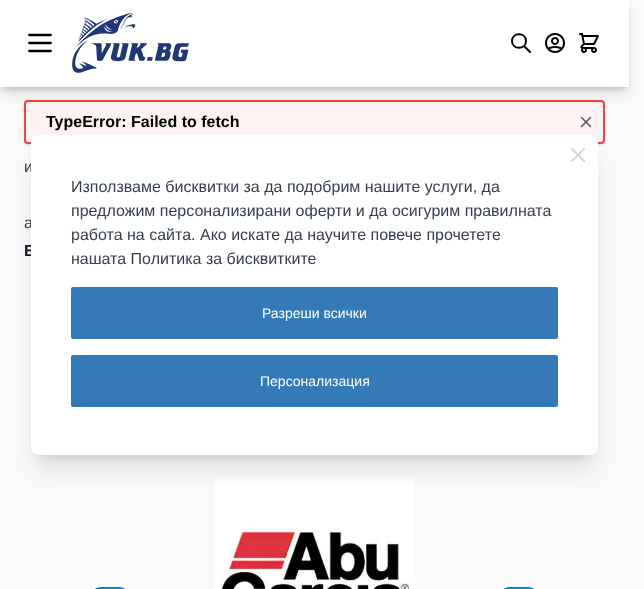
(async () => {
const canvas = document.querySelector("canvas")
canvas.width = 644
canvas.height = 589
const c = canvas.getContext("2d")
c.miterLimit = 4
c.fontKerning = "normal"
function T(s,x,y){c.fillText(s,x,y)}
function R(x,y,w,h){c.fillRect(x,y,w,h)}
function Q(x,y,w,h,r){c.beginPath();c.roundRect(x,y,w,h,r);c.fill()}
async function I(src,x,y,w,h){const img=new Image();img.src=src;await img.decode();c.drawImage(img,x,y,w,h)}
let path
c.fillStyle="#fafafa"
R(0,0,644,589)
c.fillStyle="#0000001a"
c.filter="blur(3px)"
c.beginPath()
c.rect(4,7,621,80)
c.fill()
c.filter="none"
c.filter="blur(1px)"
c.beginPath()
c.roundRect(25,102,579,42,3)
c.fill()
c.filter="none"
c.filter="blur(1.5px)"
c.beginPath()
c.roundRect(24,101,581,44,4)
c.fill()
c.filter="none"
c.fillStyle="#fef2f2"
c.beginPath()
c.roundRect(25,101,579,42,3)
c.fill()
c.strokeStyle="#ef4444"
c.lineWidth=2
c.stroke()
path = new Path2D("M581.5 126.5l9-9m-9 0l9 9")
c.strokeStyle="#4b5563"
c.lineWidth=1.5
c.lineCap="round"
c.lineJoin="round"
c.stroke(path)
c.fillStyle="#0000001a"
c.filter="blur(7.5px)"
c.beginPath()
c.rect(3,12,623,82)
c.fill()
c.filter="none"
c.fillStyle="#fff"
R(0,0,629,87)
c.save()
path = new Path2D("M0 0h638v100h-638zm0-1h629v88h-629z")
c.clip(path,"evenodd")
c.fillStyle="#0000001a"
c.filter="blur(3px)"
c.beginPath()
c.rect(1,4,627,86)
c.fill()
c.filter="none"
c.restore()
path = new Path2D("M29.5 35h21m-21 8h21m-21 8h21")
c.strokeStyle="#000"
c.lineWidth=2.7
c.stroke(path)
await I("1.png",72,13,117,60)
path = new Path2D("M530 52l-6-6m2-5c0 9-14 9-14 0c0-9 14-9 14 0z")
c.lineWidth=2
c.stroke(path)
await I("2.png",545,33,20,20)
await I("3.png",579,33,20,20)
c.font="bold 16px Liberation Sans"
c.fillStyle="#000"
T("TypeError: Failed to fetch",46,127)
c.font="16px Liberation Sans"
c.fillStyle="#374151"
T("и",24,172)
T("а",24,228)
c.font="bold 16px Liberation Sans"
c.fillStyle="#111827"
T("Б",24,256)
await I("4.png",215,477,200,112)
c.fillStyle="#0284c7"
Q(90,587,40,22,20)
Q(499,587,40,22,20)
c.fillStyle="#0000001a"
c.filter="blur(5px)"
c.beginPath()
c.roundRect(37,149,555,308,2)
c.fill()
c.filter="none"
c.filter="blur(12.5px)"
c.beginPath()
c.roundRect(36,160,557,310,3)
c.fill()
c.filter="none"
c.fillStyle="#fff"
Q(31,135,567,320,8)
path = new Path2D("M572 161l12-12m-12 0l12 12")
c.strokeStyle="#d1d5db"
c.stroke(path)
c.font="16px Liberation Sans"
c.fillStyle="#374151"
T("Използваме бисквитки за да подобрим нашите услуги, да",71,192)
T("предложим персонализирани оферти и да осигурим правилната",71,216)
T("работа на сайта. Ако искате да научите повече прочетете",71,240)
T("нашата Политика за бисквитките",71,264)
c.fillStyle="#337ab7"
Q(71,287,487,52,2)
c.font="14px Liberation Sans"
c.fillStyle="#fff"
T("Разреши всички",262,318)
c.fillStyle="#337ab7"
Q(71,355,487,52,2)
c.fillStyle="#fff"
T("Персонализация",260,386)
})()
